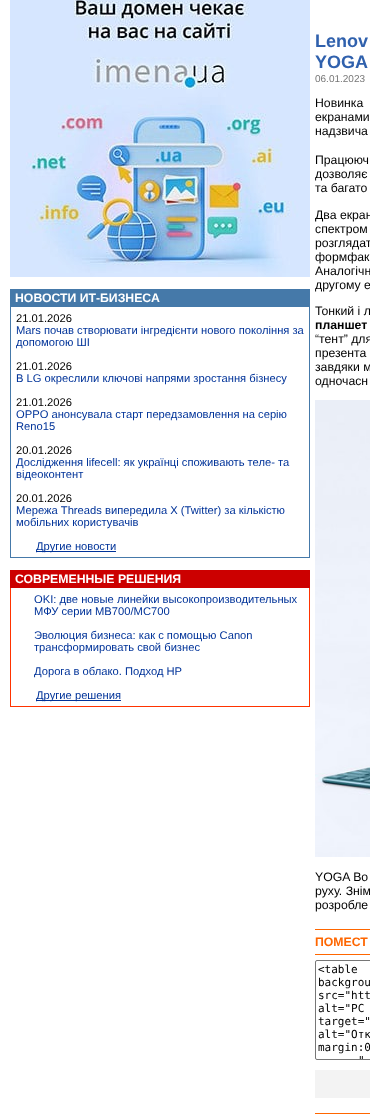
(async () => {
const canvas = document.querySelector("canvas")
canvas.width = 370
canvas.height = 1114
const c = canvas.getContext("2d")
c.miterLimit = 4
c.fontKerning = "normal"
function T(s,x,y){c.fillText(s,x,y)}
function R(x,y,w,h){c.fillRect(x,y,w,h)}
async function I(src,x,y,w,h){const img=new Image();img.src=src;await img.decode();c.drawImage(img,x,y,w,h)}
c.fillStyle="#fff"
R(0,0,370,1114)
await I("1.png",10,0,300,277)
c.fillStyle="#4579a9"
R(10,289,300,18)
c.font="bold 12.25px Liberation Sans"
c.fillStyle="#fff"
T("НОВОСТИ ИТ-БИЗНЕСА",15,302)
c.fillStyle="#4579a9"
R(309,307,1,251)
R(10,557,300,1)
R(10,307,1,251)
c.font="11.2px Liberation Sans"
c.fillStyle="#000"
T("21.01.2026",16,322)
c.fillStyle="#039"
T("Mars почав створювати інгредієнти нового покоління за",16,334)
T("допомогою ШІ",16,346)
c.fillStyle="#000"
T("21.01.2026",16,370)
c.fillStyle="#039"
T("В LG окреслили ключові напрями зростання бізнесу",16,382)
c.fillStyle="#000"
T("21.01.2026",16,406)
c.fillStyle="#039"
T("OPPO анонсувала старт передзамовлення на серію",16,418)
T("Reno15",16,430)
c.fillStyle="#000"
T("20.01.2026",16,454)
c.fillStyle="#039"
T("Дослідження lifecell: як українці споживають теле- та",16,466)
T("відеоконтент",16,478)
c.fillStyle="#000"
T("20.01.2026",16,502)
c.fillStyle="#039"
T("Мережа Threads випередила X (Twitter) за кількістю",16,514)
T("мобільних користувачів",16,526)
R(36,551,80,1)
T("Другие новости",36,550)
c.fillStyle="#c00"
R(10,570,300,18)
c.font="bold 12.25px Liberation Sans"
c.fillStyle="#fff"
T("СОВРЕМЕННЫЕ РЕШЕНИЯ",15,583)
c.fillStyle="#f30"
R(309,588,1,119)
R(10,706,300,1)
R(10,588,1,119)
c.font="11.2px Liberation Sans"
c.fillStyle="#039"
T("OKI: две новые линейки высокопроизводительных",34,603)
T("МФУ серии МВ700/MC700",34,615)
T("Эволюция бизнеса: как с помощью Canon",34,639)
T("трансформировать свой бизнес",34,651)
T("Дорога в облако. Подход HP",34,675)
R(36,700,85,1)
T("Другие решения",36,699)
c.font="bold 18px Liberation Sans"
c.fillStyle="#3061ad"
T("Lenov",315,47)
T("YOGA",315,68)
c.font="10px Liberation Sans"
c.fillStyle="#777"
T("06.01.2023",315,82)
c.font="12.25px Liberation Sans"
c.fillStyle="#000"
T("Новинка",315,107)
T("екранами",315,121)
T("надзвича",315,135)
T("Працююч",315,164)
T("дозволяє",315,178)
T("та багато",315,192)
T("Два екран",315,219)
T("спектром",315,233)
T("розглядат",315,247)
T("формфак",315,261)
T("Аналогічн",315,275)
T("другому е",315,289)
T("Тонкий і л",315,315)
c.font="bold 12.25px Liberation Sans"
T("планшет",315,329)
c.font="12.25px Liberation Sans"
T("“тент” для",315,343)
T("презента",315,357)
T("завдяки м",315,371)
T("одночасн",315,385)
await I("2.png",315,400,55,457)
T("YOGA Bo",315,881)
T("руху. Знім",315,895)
T("розробле",315,909)
c.fillStyle="#f60"
R(315,929,55,1)
R(315,954,55,1)
c.font="bold 12.25px Liberation Sans"
c.fillStyle="#fe6600"
T("ПОМЕСТ",315,946)
c.beginPath()
c.roundRect(315.5,960.5,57,99,1.5)
c.strokeStyle="#767676"
c.stroke()
c.wordSpacing="10px"
c.font="11px DejaVu Sans Mono"
c.fillStyle="#000"
T("<table",318,973)
c.wordSpacing="20px"
T("backgrou",318,986)
c.wordSpacing="0px"
T("src=\"htt",318,999)
c.wordSpacing="33px"
T("alt=\"PC",318,1012)
c.wordSpacing="0px"
T("target=\"",318,1025)
c.wordSpacing="8px"
T("alt=\"Отк",318,1038)
c.wordSpacing="13px"
T("margin:0",318,1051)
c.wordSpacing="0px"
T("\"",358,1064)
c.fillStyle="#f3f3f3"
R(315,1070,55,28)
c.fillStyle="#f60"
R(315,1113,55,1)
})()
